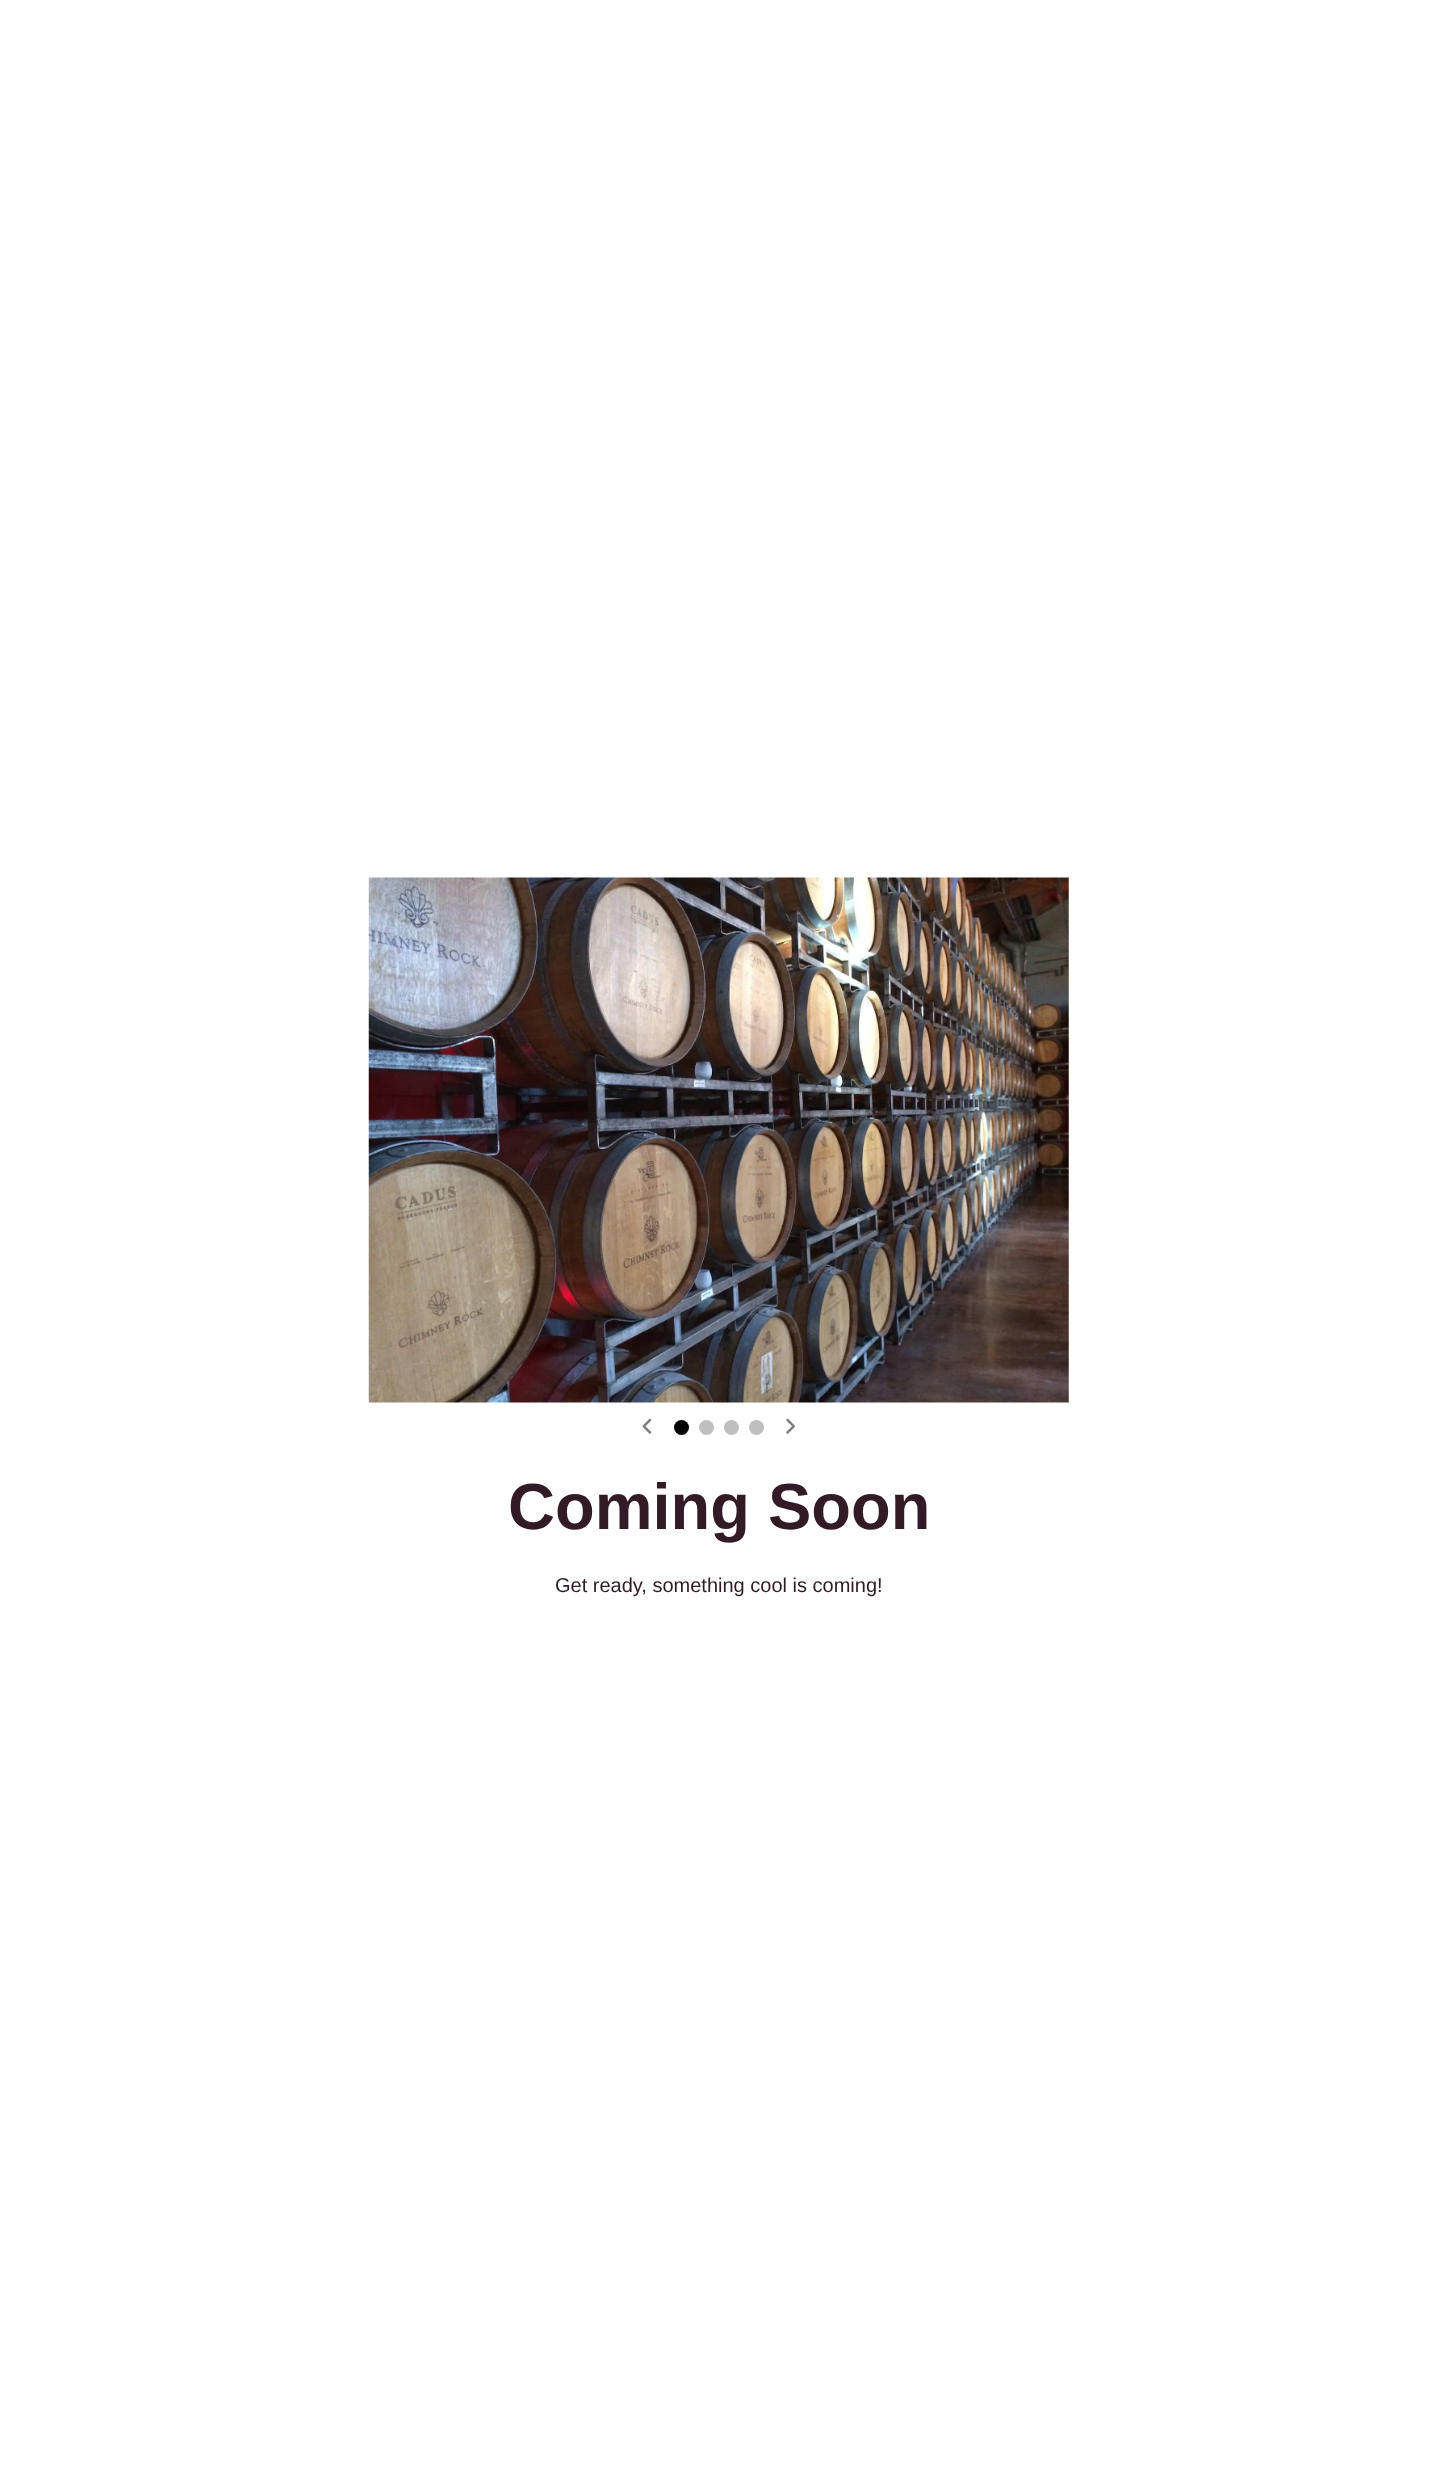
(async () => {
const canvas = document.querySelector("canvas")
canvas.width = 1437
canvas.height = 2478
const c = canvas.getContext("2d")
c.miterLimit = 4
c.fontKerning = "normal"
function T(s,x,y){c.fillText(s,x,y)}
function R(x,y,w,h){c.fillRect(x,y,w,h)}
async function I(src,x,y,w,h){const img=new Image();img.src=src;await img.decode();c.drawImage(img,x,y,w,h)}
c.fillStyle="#fff"
R(0,0,1437,2478)
await I("1.png",368,877,701,526)
await I("2.png",642,1418,10,16)
c.fillStyle="#000"
c.beginPath()
c.arc(681.5,1427.5,7.5,0,7)
c.fill()
c.fillStyle="#bfbfbf"
c.beginPath()
c.arc(706.5,1427.5,7.5,0,7)
c.fill()
c.beginPath()
c.arc(731.5,1427.5,7.5,0,7)
c.fill()
c.beginPath()
c.arc(756.5,1427.5,7.5,0,7)
c.fill()
await I("3.png",786,1418,9,16)
c.font="bold 65px Liberation Sans"
c.fillStyle="#321b26"
T("Coming Soon",508,1529)
c.font="20px Liberation Sans"
T("Get ready, something cool is coming!",555,1592)
})()
